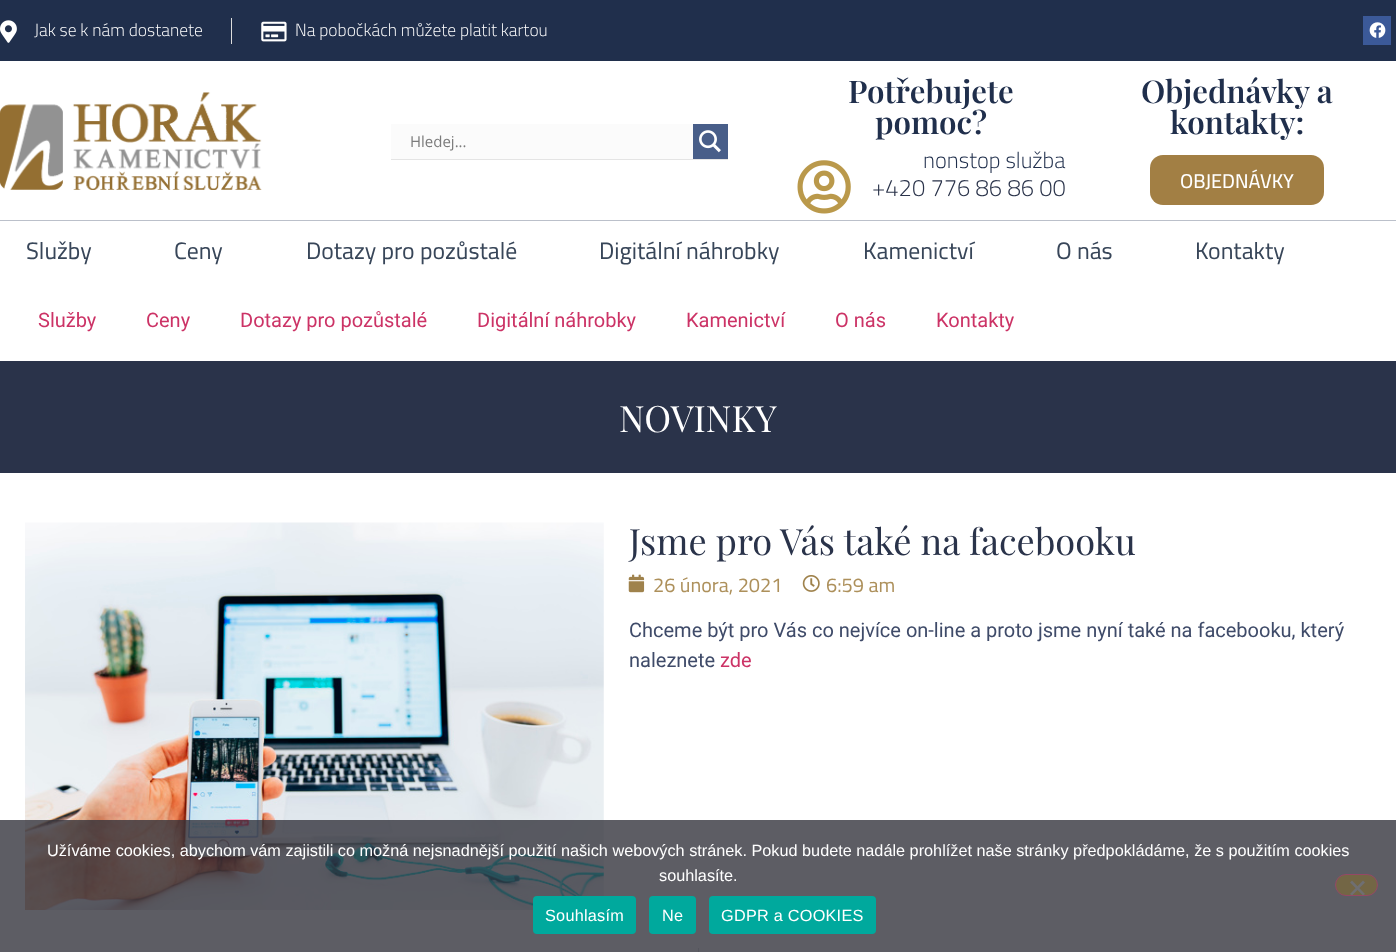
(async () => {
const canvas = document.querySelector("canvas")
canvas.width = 1396
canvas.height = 952
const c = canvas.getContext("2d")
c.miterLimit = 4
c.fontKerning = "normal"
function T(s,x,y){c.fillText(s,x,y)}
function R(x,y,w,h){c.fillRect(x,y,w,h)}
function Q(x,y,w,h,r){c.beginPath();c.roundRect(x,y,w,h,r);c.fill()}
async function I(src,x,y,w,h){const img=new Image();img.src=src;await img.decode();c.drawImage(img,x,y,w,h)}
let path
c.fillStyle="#fff"
R(0,0,1396,952)
c.fillStyle="#202f4c"
R(0,0,1396,61)
await I("1.png",0,20,17,23)
c.font="300 17.5px Cairo"
c.fillStyle="#fff"
T("Jak se k nám dostanete",34,36)
c.fillStyle="#ddd"
R(231,18,1,26)
await I("2.png",261,21,26,21)
c.fillStyle="#fff"
T("Na pobočkách můžete platit kartou",295,36)
c.fillStyle="#3b5998"
R(1363,16,28,29)
await I("3.png",1369,22,17,16)
await I("4.png",0,92,262,98)
c.fillStyle="#e4e4e4"
path = new Path2D("M391 125v35h337v-35v34h-337z")
c.fill(path)
c.fillStyle="#fbfbfb"
R(391,124,302,35)
c.font="15px Open Sans"
c.fillStyle="#7b7b7b"
T("Hledej...",410,147)
c.fillStyle="#485e89"
R(693,124,35,35)
await I("5.png",699,130,22,23)
c.font="600 31.25px Playfair Display"
c.fillStyle="#202f4c"
T("Potřebujete",848,103)
T("pomoc?",875,134)
c.font="300 22.5px Cairo"
T("nonstop služba",923,168)
await I("6.png",797,160,54,54)
c.font="300 23.75px Cairo"
c.fillStyle="#2a334a"
T("+420 776 86 86 00",872,196)
c.font="600 31.25px Playfair Display"
c.fillStyle="#202f4c"
T("Objednávky a",1141,103)
T("kontakty:",1170,134)
c.fillStyle="#a27f44"
Q(1150,155,174,50,13)
c.font="500 20px Cairo"
c.fillStyle="#fff"
T("OBJEDNÁVKY",1180,188)
c.fillStyle="#bbc0ca"
R(0,220,1396,1)
c.font="23.75px Cairo"
c.fillStyle="#384659"
T("Služby",26,259)
T("Ceny",174,259)
T("Dotazy pro pozůstalé",306,259)
T("Digitální náhrobky",599,259)
T("Kamenictví",863,259)
T("O nás",1056,259)
T("Kontakty",1195,259)
c.font="20px Roboto"
c.fillStyle="#c36"
T("Služby",38,327)
T("Ceny",146,327)
T("Dotazy pro pozůstalé",240,327)
T("Digitální náhrobky",477,327)
T("Kamenictví",686,327)
T("O nás",835,327)
T("Kontakty",936,327)
c.fillStyle="#2a334a"
R(0,361,1396,112)
c.font="36.25px Playfair Display"
c.fillStyle="#fff"
T("NOVINKY",619,432)
await I("7.png",25,522,579,388)
c.fillStyle="#2a334a"
T("Jsme pro Vás také na facebooku",629,555)
await I("8.png",628,574,17,19)
c.font="20px Cairo"
c.fillStyle="#ad905b"
T("26 února, 2021",653,592)
await I("9.png",802,575,18,17)
T("6:59 am",826,592)
c.font="20px Roboto"
c.fillStyle="#3f4b69"
T("Chceme být pro Vás co nejvíce on-line a proto jsme nyní také na facebooku, který",629,637)
T("naleznete",629,667)
c.fillStyle="#c36"
T("zde",720,667)
c.fillStyle="#d5d8dc"
R(698,948,1,4)
c.fillStyle="#32323ac9"
R(0,820,1396,132)
c.font="16.25px Liberation Sans"
c.fillStyle="#fff"
T("Užíváme cookies, abychom vám zajistili co možná nejsnadnější použití našich webových stránek. Pokud budete nadále prohlížet naše stránky předpokládáme, že s použitím cookies",47,856)
T("souhlasíte.",659,881)
c.fillStyle="#736645"
c.beginPath()
c.roundRect(1335.5,874.5,42,21,10.5)
c.fill()
c.strokeStyle="#954865"
c.stroke()
c.fillStyle="#6f6f72"
path = new Path2D("M1363 880.5l2 2l-13 13l-2-1.5z")
c.fill(path)
path = new Path2D("M1350 882.5l2-2l13 13.5l-2 1.5z")
c.fill(path)
c.fillStyle="#00a99d"
Q(533,896,103,38,4)
c.letterSpacing="0.25px"
c.fillStyle="#fff"
T("Souhlasím",545,921)
c.fillStyle="#00a99d"
Q(649,896,47,38,4)
c.fillStyle="#fff"
T("Ne",662,921)
c.fillStyle="#00a99d"
Q(709,896,167,38,4)
c.fillStyle="#fff"
T("GDPR a COOKIES",721,921)
})()
